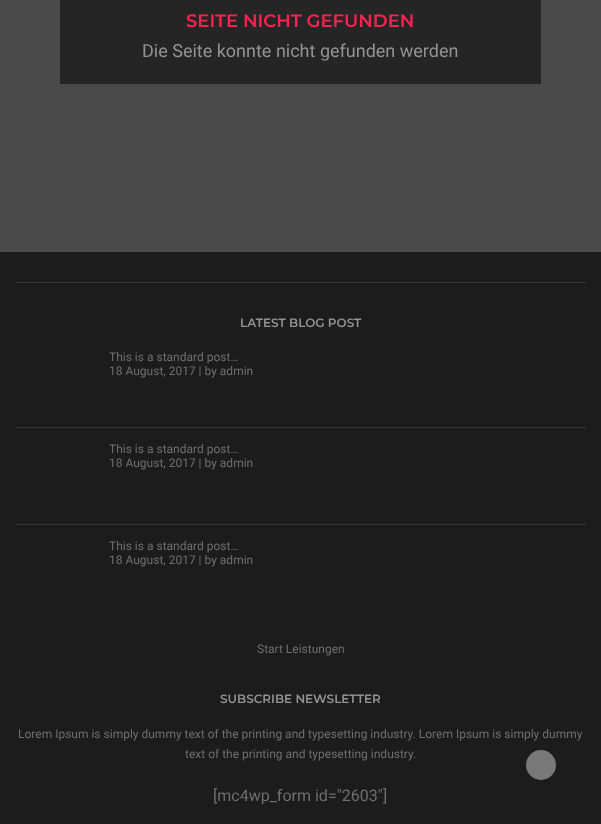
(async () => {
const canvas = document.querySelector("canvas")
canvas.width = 601
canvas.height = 824
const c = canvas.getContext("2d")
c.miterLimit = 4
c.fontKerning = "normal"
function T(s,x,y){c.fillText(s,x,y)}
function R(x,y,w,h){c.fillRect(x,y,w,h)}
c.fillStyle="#1c1c1c"
R(0,0,601,824)
c.fillStyle="#4a4a4a"
R(0,0,601,252)
c.fillStyle="#252525"
R(60,0,481,84)
c.font="600 18px Montserrat"
c.fillStyle="#ff214f"
T("SEITE NICHT GEFUNDEN",186,27)
c.font="18px Roboto"
c.fillStyle="#939393"
T("Die Seite konnte nicht gefunden werden",142,57)
c.fillStyle="#363636"
R(15,282,571,1)
c.font="600 12px Montserrat"
c.fillStyle="#939393"
T("LATEST BLOG POST",240,327)
c.fillStyle="#363636"
R(15,427,571,1)
c.font="12px Roboto"
c.fillStyle="#6f6f6f"
T("This is a standard post…",109,361)
T("18 August, 2017 | by admin",109,375)
c.fillStyle="#363636"
R(15,524,571,1)
c.fillStyle="#6f6f6f"
T("This is a standard post…",109,453)
T("18 August, 2017 | by admin",109,467)
T("This is a standard post…",109,550)
T("18 August, 2017 | by admin",109,564)
T("Start Leistungen",257,653)
c.font="600 12px Montserrat"
c.fillStyle="#939393"
T("SUBSCRIBE NEWSLETTER",220,703)
c.font="12px Roboto"
c.fillStyle="#6f6f6f"
T("Lorem Ipsum is simply dummy text of the printing and typesetting industry. Lorem Ipsum is simply dummy",18,738)
T("text of the printing and typesetting industry.",185,758)
c.font="16px Roboto"
T("[mc4wp_form id=\"2603\"]",213,801)
c.fillStyle="#787878"
c.beginPath()
c.arc(541,765,15,0,7)
c.fill()
})()
